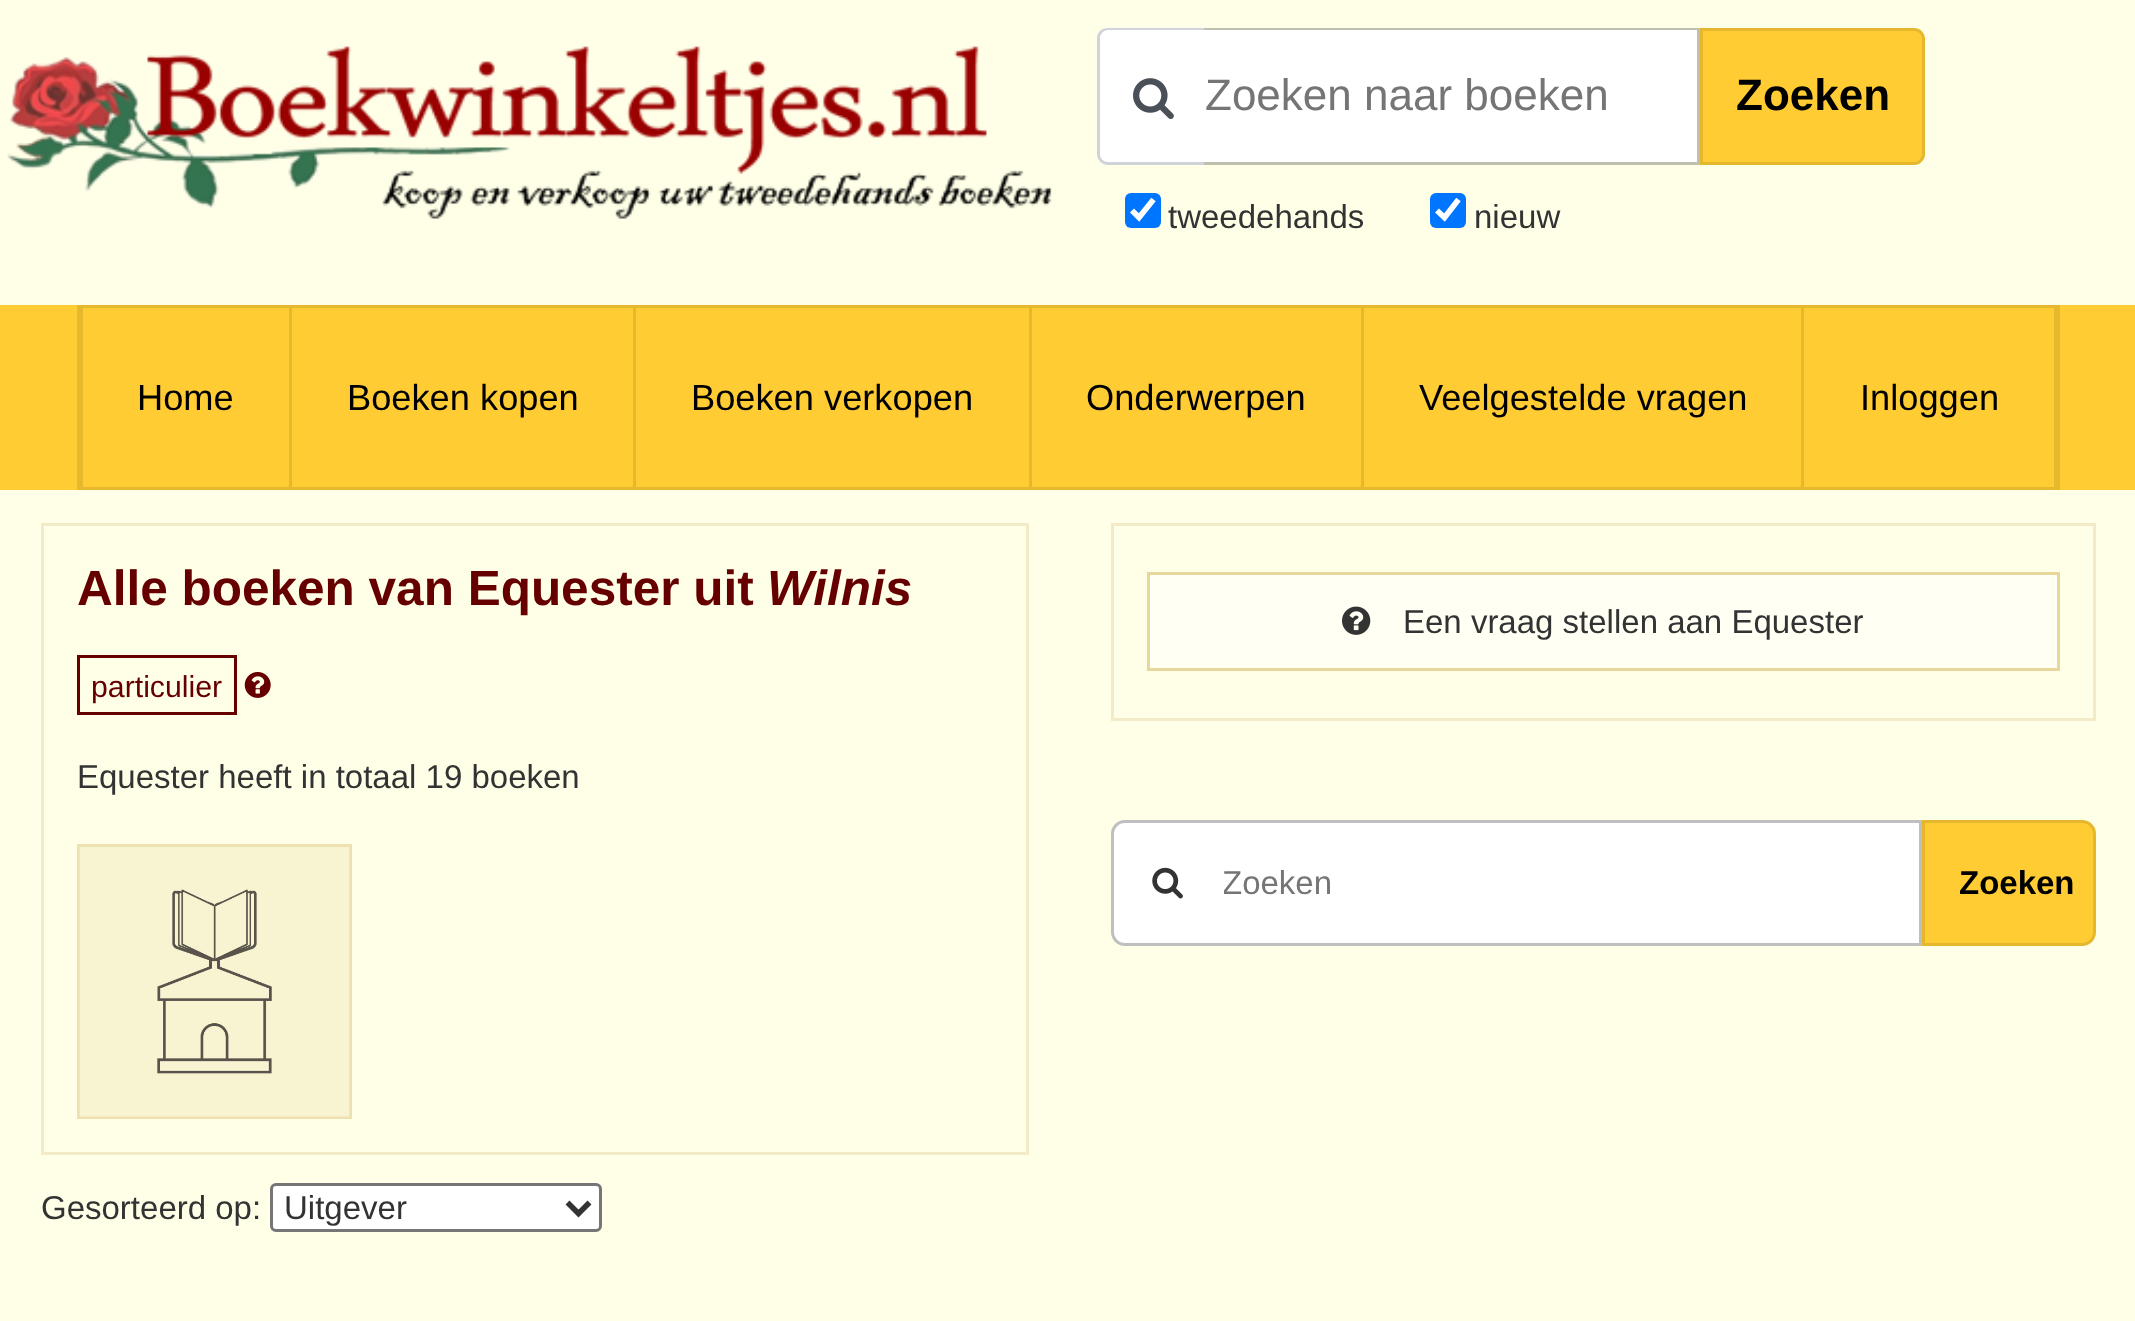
(async () => {
const canvas = document.querySelector("canvas")
canvas.width = 2135
canvas.height = 1321
const c = canvas.getContext("2d")
c.miterLimit = 4
c.fontKerning = "normal"
function T(s,x,y){c.fillText(s,x,y)}
function R(x,y,w,h){c.fillRect(x,y,w,h)}
function Q(x,y,w,h,r){c.beginPath();c.roundRect(x,y,w,h,r);c.fill()}
async function I(src,x,y,w,h){const img=new Image();img.src=src;await img.decode();c.drawImage(img,x,y,w,h)}
let path
c.fillStyle="#ffffe8"
R(0,0,2135,1321)
await I("1.png",7,46,1045,173)
c.fillStyle="#fff"
c.beginPath()
c.roundRect(1097,28,108,137,[11,0,0,11])
c.fill()
c.fillStyle="#ced4da"
path = new Path2D("M1108 28h96v137h-96c-6 0-11-5-11-11v-116c0-6 5-10 11-10zm0 2h96v132h-96c-4 0-8-3-8-8v-116c0-4 4-8 8-8z")
c.fill(path,"evenodd")
await I("2.png",1133,78,41,41)
c.fillStyle="#fff"
R(1205,30,492,132)
c.fillStyle="#00000040"
path = new Path2D("M1204 28h496l-3 2h-493z")
c.fill(path)
path = new Path2D("M1700 28v137l-3-3v-132z")
c.fill(path)
path = new Path2D("M1700 165h-496v-3h493z")
c.fill(path)
c.font="44px Liberation Sans"
c.fillStyle="#757575"
T("Zoeken naar boeken",1205,110)
c.fillStyle="#fc3"
c.beginPath()
c.roundRect(1700,28,225,137,[0,11,11,0])
c.fill()
c.beginPath()
c.roundRect(1701.5,29.5,222,134,[0,9.5,9.5,0])
c.strokeStyle="#0000001a"
c.lineWidth=3
c.stroke()
c.font="bold 44px Liberation Sans"
c.fillStyle="#000"
T("Zoeken",1736,110)
c.fillStyle="#0075ff"
Q(1125,193,36,35,6)
path = new Path2D("M1132 210.5l7 7l14.5-18")
c.strokeStyle="#fff"
c.lineWidth=5.7
c.stroke(path)
c.font="33px Liberation Sans"
c.fillStyle="#333"
T("tweedehands",1168,228)
c.fillStyle="#0075ff"
Q(1430,193,36,35,6)
path = new Path2D("M1437 210.5l7.5 7l14-18")
c.stroke(path)
c.fillStyle="#333"
T("nieuw",1474,228)
c.fillStyle="#fc3"
R(0,305,2135,185)
c.strokeStyle="#e6b82e"
c.lineWidth=3
c.strokeRect(78.5,306.5,1980,182)
c.fillStyle="#e6b82e"
R(289,308,3,179)
R(80,308,3,179)
c.font="36.25px Liberation Sans"
c.fillStyle="#000"
T("Home",137,410)
c.fillStyle="#e6b82e"
R(633,308,3,179)
c.fillStyle="#000"
T("Boeken kopen",347,410)
c.fillStyle="#e6b82e"
R(1029,308,3,179)
c.fillStyle="#000"
T("Boeken verkopen",691,410)
c.fillStyle="#e6b82e"
R(1361,308,3,179)
c.fillStyle="#000"
T("Onderwerpen",1086,410)
c.fillStyle="#e6b82e"
R(1801,308,3,179)
c.fillStyle="#000"
T("Veelgestelde vragen",1419,410)
c.fillStyle="#e6b82e"
R(2054,308,3,179)
c.fillStyle="#000"
T("Inloggen",1860,410)
c.strokeStyle="#f3eac8"
c.strokeRect(42.5,524.5,985,629)
c.font="bold 49.5px Liberation Sans"
c.fillStyle="#600"
T("Alle boeken van Equester uit",77,605)
c.font="italic bold 49.5px Liberation Sans"
T("Wilnis",767,605)
c.strokeStyle="#600"
c.strokeRect(78.5,656.5,157,57)
c.font="30.25px Liberation Sans"
T("particulier",91,697)
await I("3.png",244,672,27,26)
c.font="33px Liberation Sans"
c.fillStyle="#333"
T("Equester heeft in totaal 19 boeken",77,788)
c.strokeStyle="#eee1b0"
c.strokeRect(78.5,845.5,272,272)
await I("4.png",79,847,271,270)
c.strokeStyle="#f3eac8"
c.strokeRect(1112.5,524.5,982,195)
c.fillStyle="#fffff4"
c.beginPath()
c.rect(1148.5,573.5,910,96)
c.fill()
c.strokeStyle="#e8d79d"
c.stroke()
await I("5.png",1342,606,29,29)
c.fillStyle="#333"
T("Een vraag stellen aan Equester",1403,633)
c.fillStyle="#fff"
c.beginPath()
c.roundRect(1111,820,811,126,[14,0,0,14])
c.fill()
c.beginPath()
c.roundRect(1112.5,821.5,808,123,[12.5,0,0,12.5])
c.strokeStyle="#00000040"
c.stroke()
await I("6.png",1152,867,31,32)
c.save()
c.beginPath()
c.rect(1224,864,654,38)
c.clip()
c.fillStyle="#757575"
T("Zoeken",1222,894)
c.restore()
c.fillStyle="#fc3"
c.beginPath()
c.roundRect(1922,820,174,126,[0,14,14,0])
c.fill()
c.beginPath()
c.roundRect(1923.5,821.5,171,123,[0,12.5,12.5,0])
c.strokeStyle="#0000001a"
c.stroke()
c.font="bold 33px Liberation Sans"
c.fillStyle="#000"
T("Zoeken",1959,894)
c.font="33px Liberation Sans"
c.fillStyle="#333"
T("Gesorteerd op:",41,1219)
c.fillStyle="#fff"
c.beginPath()
c.roundRect(271.5,1184.5,329,46,4.5)
c.fill()
c.strokeStyle="#767676"
c.stroke()
path = new Path2D("M567.5 1202.5l11 11l11-11")
c.strokeStyle="#333"
c.lineWidth=5.5
c.stroke(path)
c.fillStyle="#333"
T("Uitgever",284,1219)
})()
